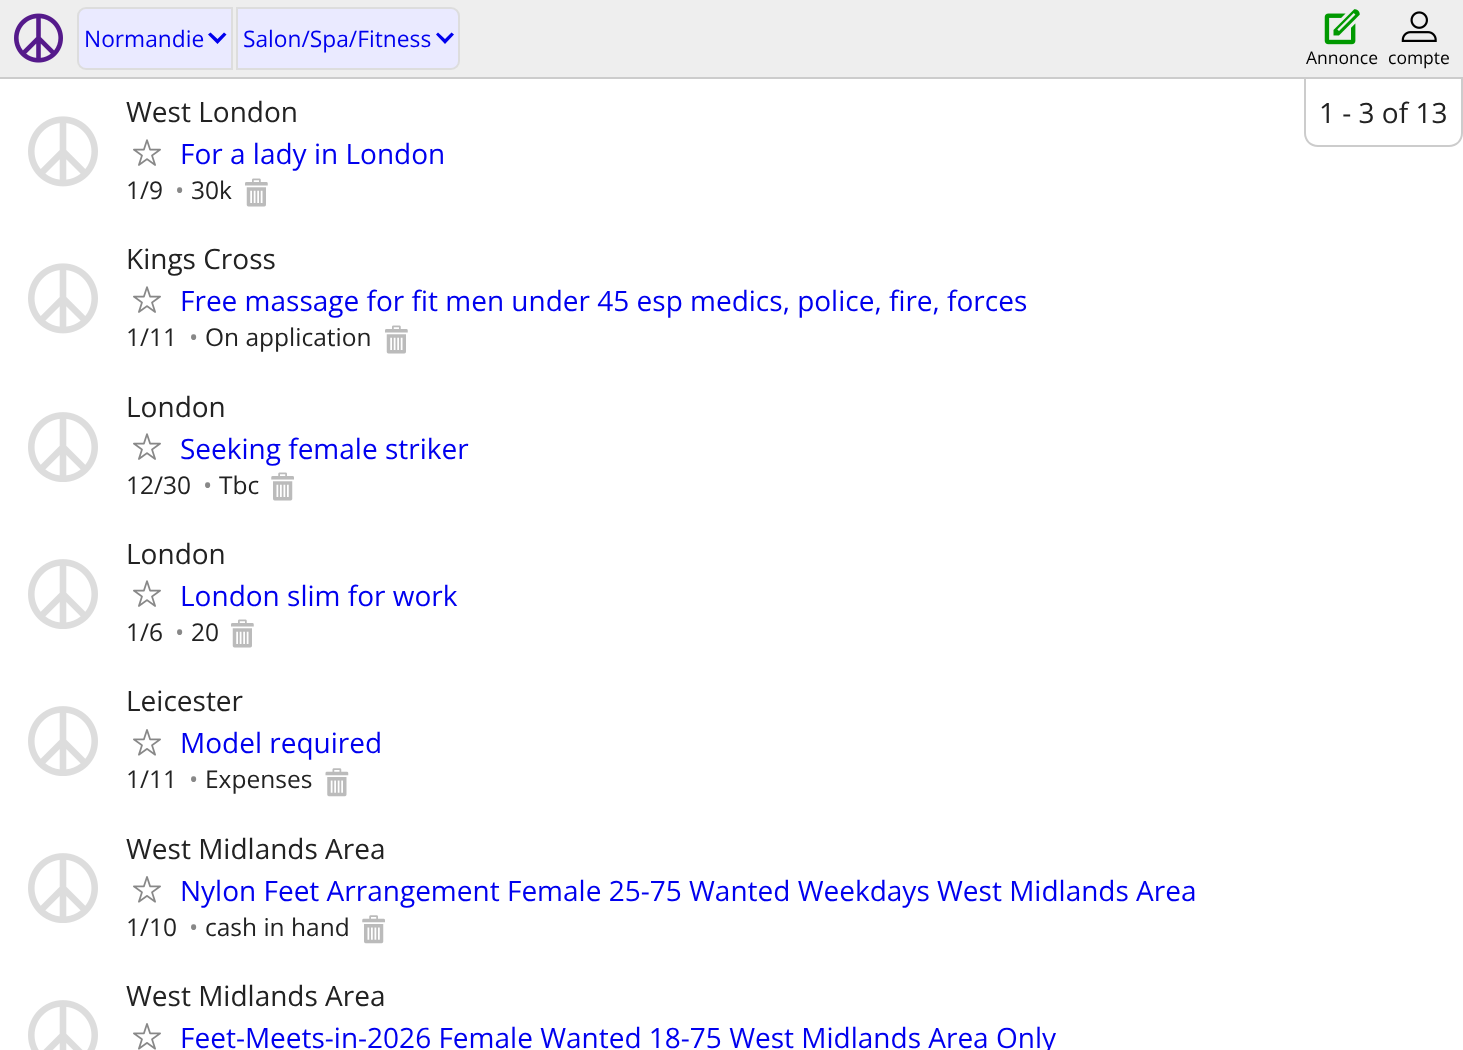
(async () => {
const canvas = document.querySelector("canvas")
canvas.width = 1463
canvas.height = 1050
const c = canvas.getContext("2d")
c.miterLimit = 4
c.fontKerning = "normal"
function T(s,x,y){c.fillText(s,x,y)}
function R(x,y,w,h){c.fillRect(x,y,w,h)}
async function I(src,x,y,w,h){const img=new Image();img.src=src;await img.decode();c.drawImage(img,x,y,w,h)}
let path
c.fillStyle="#fff"
R(0,0,1463,1050)
c.fillStyle="#eee"
R(0,0,1463,77)
c.fillStyle="#ccc"
R(0,77,1463,2)
await I("1.png",14,13,49,50)
c.fillStyle="#eaeaff"
c.beginPath()
c.roundRect(78,8,154,61,[8,0,0,8])
c.fill()
c.strokeStyle="#ddd"
c.lineWidth=2
c.stroke()
c.font="22.75px Open Sans"
c.fillStyle="#00e"
T("Normandie",84,47)
path = new Path2D("M226.5 34.5l-2.5-2l-6.5 6.5l-7-6.5l-2.5 2l9.5 9.5z")
c.fill(path)
c.fillStyle="#eaeaff"
c.beginPath()
c.roundRect(237,8,222,61,[0,8,8,0])
c.fill()
c.stroke()
c.fillStyle="#00e"
T("Salon/Spa/Fitness",243,47)
path = new Path2D("M454 34.5l-2.5-2l-6.5 6.5l-7-6.5l-2 2l9 9.5z")
c.fill(path)
await I("2.png",1324,9,36,36)
c.font="17.5px Open Sans"
c.fillStyle="#000"
T("Annonce",1306,64)
await I("3.png",1401,11,36,31)
T("compte",1388,64)
await I("4.png",28,116,70,71)
c.font="28px Open Sans"
c.fillStyle="#222"
T("West London",126,122)
await I("5.png",133,139,28,27)
c.fillStyle="#00e"
T("For a lady in London",180,164)
c.font="24.5px Open Sans"
c.fillStyle="#222"
T("1/9",126,199)
c.fillStyle="#888"
T("•",175,199)
c.fillStyle="#222"
T("30k",191,199)
await I("6.png",245,178,23,29)
await I("4.png",28,263,70,71)
c.font="28px Open Sans"
T("Kings Cross",126,269)
await I("5.png",133,286,28,27)
c.fillStyle="#00e"
T("Free massage for fit men under 45 esp medics, police, fire, forces",180,311)
c.font="24.5px Open Sans"
c.fillStyle="#222"
T("1/11",126,346)
c.fillStyle="#888"
T("•",189,346)
c.fillStyle="#222"
T("On application",205,346)
await I("6.png",385,325,23,29)
await I("7.png",28,412,70,70)
c.font="28px Open Sans"
T("London",126,417)
await I("5.png",133,433,28,27)
c.fillStyle="#00e"
T("Seeking female striker",180,459)
c.font="24.5px Open Sans"
c.fillStyle="#222"
T("12/30",126,494)
c.fillStyle="#888"
T("•",203,494)
c.fillStyle="#222"
T("Tbc",219,494)
await I("8.png",271,472,23,29)
await I("7.png",28,559,70,70)
c.font="28px Open Sans"
T("London",126,564)
await I("5.png",133,580,28,27)
c.fillStyle="#00e"
T("London slim for work",180,606)
c.font="24.5px Open Sans"
c.fillStyle="#222"
T("1/6",126,641)
c.fillStyle="#888"
T("•",175,641)
c.fillStyle="#222"
T("20",191,641)
await I("6.png",231,619,23,29)
await I("7.png",28,706,70,70)
c.font="28px Open Sans"
T("Leicester",126,711)
await I("9.png",133,729,28,27)
c.fillStyle="#00e"
T("Model required",180,753)
c.font="24.5px Open Sans"
c.fillStyle="#222"
T("1/11",126,788)
c.fillStyle="#888"
T("•",189,788)
c.fillStyle="#222"
T("Expenses",205,788)
await I("10.png",325,768,24,29)
await I("7.png",28,853,70,70)
c.font="28px Open Sans"
T("West Midlands Area",126,859)
await I("9.png",133,876,28,27)
c.fillStyle="#00e"
T("Nylon Feet Arrangement Female 25-75 Wanted Weekdays West Midlands Area",180,901)
c.font="24.5px Open Sans"
c.fillStyle="#222"
T("1/10",126,936)
c.fillStyle="#888"
T("•",189,936)
c.fillStyle="#222"
T("cash in hand",205,936)
await I("11.png",362,915,23,29)
await I("12.png",28,1000,70,50)
c.font="28px Open Sans"
T("West Midlands Area",126,1006)
await I("9.png",133,1023,28,27)
c.fillStyle="#00e"
T("Feet-Meets-in-2026 Female Wanted 18-75 West Midlands Area Only",180,1048)
c.fillStyle="#ccc"
path = new Path2D("M1304 79h159v54c0 8-6 14-14 14h-131c-8 0-14-6-14-14zm2 0h155v54c0 7-5 12-12 12h-131c-7 0-12-5-12-12z")
c.fill(path,"evenodd")
c.fillStyle="#222"
T("1 - 3 of 13",1319,123)
})()
